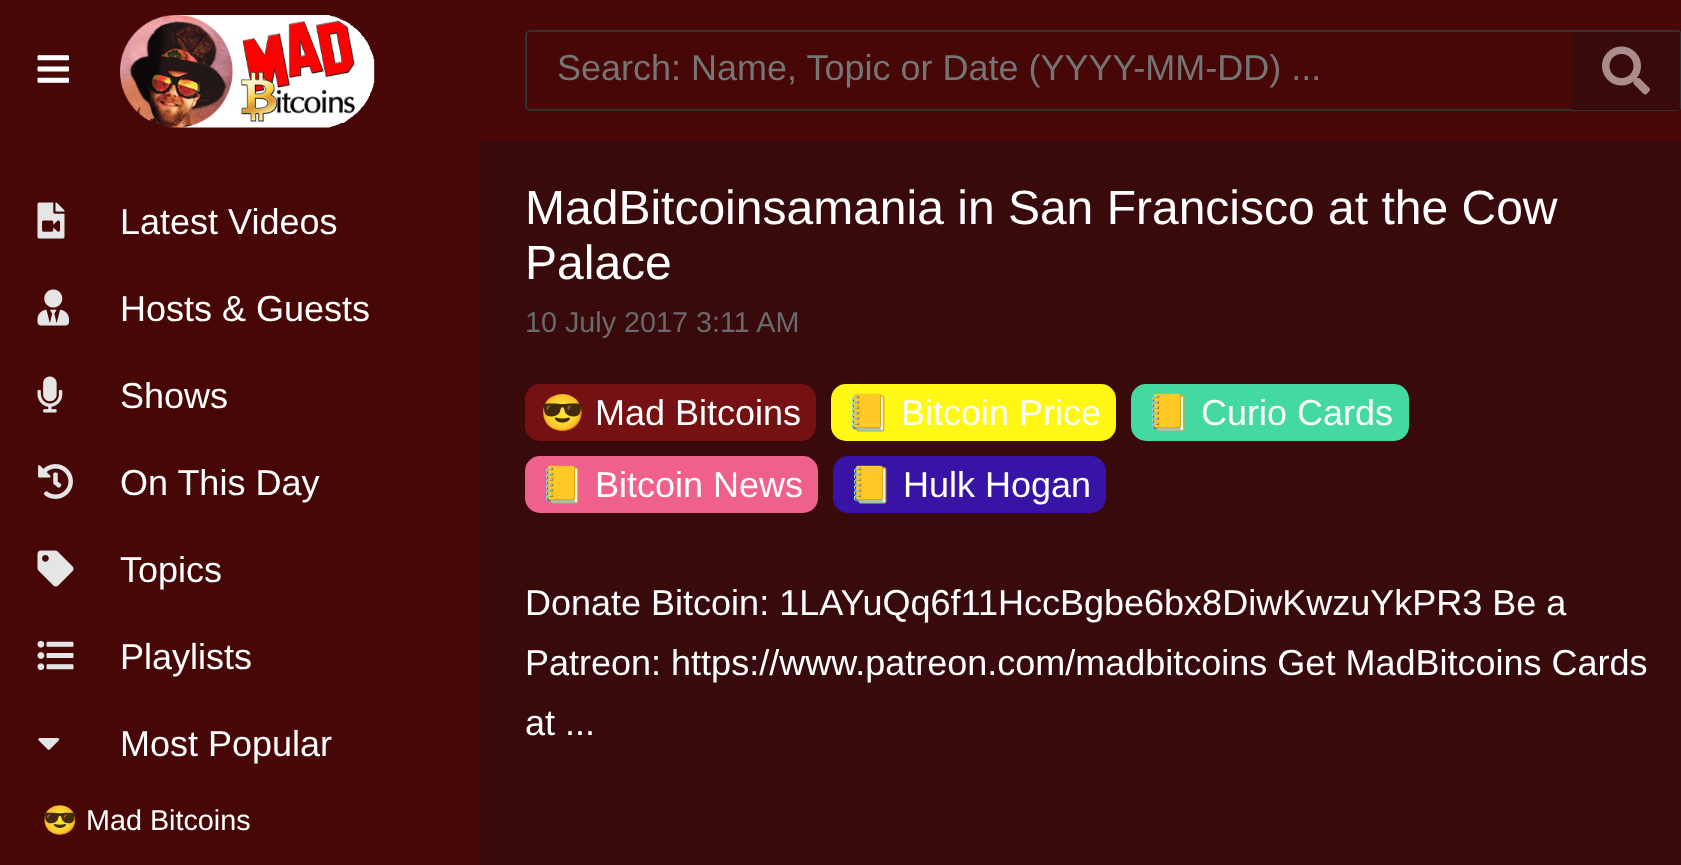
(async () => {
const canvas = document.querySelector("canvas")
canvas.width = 1681
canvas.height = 865
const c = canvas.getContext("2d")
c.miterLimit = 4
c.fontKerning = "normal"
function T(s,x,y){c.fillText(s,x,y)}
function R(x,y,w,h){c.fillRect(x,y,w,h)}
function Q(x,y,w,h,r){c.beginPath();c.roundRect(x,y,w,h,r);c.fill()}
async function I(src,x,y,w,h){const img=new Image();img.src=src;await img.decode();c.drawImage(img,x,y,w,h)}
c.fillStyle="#390a0b"
R(0,0,1681,865)
c.fillStyle="#470707"
R(0,0,1681,141)
await I("1.png",37,55,32,28)
await I("2.png",120,15,255,113)
c.beginPath()
c.roundRect(526,31,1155,79,4)
c.strokeStyle="#313131"
c.lineWidth=2
c.stroke()
c.font="36px Liberation Sans"
c.fillStyle="#757575"
T("Search: Name, Topic or Date (YYYY-MM-DD) ...",557,80)
c.fillStyle="#390a0b"
R(1572,32,108,78)
await I("3.png",1602,46,48,49)
c.fillStyle="#470707"
R(0,141,480,724)
await I("4.png",37,202,28,37)
c.fillStyle="#fff"
T("Latest Videos",120,234)
await I("5.png",37,289,32,37)
T("Hosts & Guests",120,321)
await I("6.png",37,376,26,37)
T("Shows",120,408)
await I("7.png",38,464,35,35)
T("On This Day",120,495)
await I("8.png",37,550,37,37)
T("Topics",120,582)
await I("9.png",37,640,37,31)
T("Playlists",120,669)
await I("10.png",38,738,22,12)
T("Most Popular",120,756)
c.font="28.75px Noto Color Emoji"
T("😎",42,830)
c.font="28.75px Liberation Sans"
T("Mad Bitcoins",86,830)
c.font="48px Liberation Sans"
T("MadBitcoinsamania in San Francisco at the Cow",525,224)
T("Palace",525,279)
c.font="28.75px Liberation Sans"
c.fillStyle="#6b6b6b"
T("10 July 2017 3:11 AM",525,332)
c.fillStyle="#751113"
Q(525,384,291,57,15)
c.font="36px Noto Color Emoji"
c.fillStyle="#fff"
T("😎",540,425)
c.font="36px Liberation Sans"
T("Mad Bitcoins",595,425)
c.fillStyle="#fff714"
Q(831,384,285,57,15)
c.font="36px Noto Color Emoji"
c.fillStyle="#fff"
T("📒",846,425)
c.font="36px Liberation Sans"
T("Bitcoin Price",901,425)
c.fillStyle="#44d9a0"
Q(1131,384,278,57,15)
c.font="36px Noto Color Emoji"
c.fillStyle="#fff"
T("📒",1146,425)
c.font="36px Liberation Sans"
T("Curio Cards",1201,425)
c.fillStyle="#ef608c"
Q(525,456,293,57,15)
c.font="36px Noto Color Emoji"
c.fillStyle="#fff"
T("📒",540,497)
c.font="36px Liberation Sans"
T("Bitcoin News",595,497)
c.fillStyle="#3713a6"
Q(833,456,273,57,15)
c.font="36px Noto Color Emoji"
c.fillStyle="#fff"
T("📒",848,497)
c.font="36px Liberation Sans"
T("Hulk Hogan",903,497)
T("Donate Bitcoin: 1LAYuQq6f11HccBgbe6bx8DiwKwzuYkPR3 Be a",525,615)
T("Patreon: https://www.patreon.com/madbitcoins Get MadBitcoins Cards",525,675)
T("at ...",525,735)
})()
